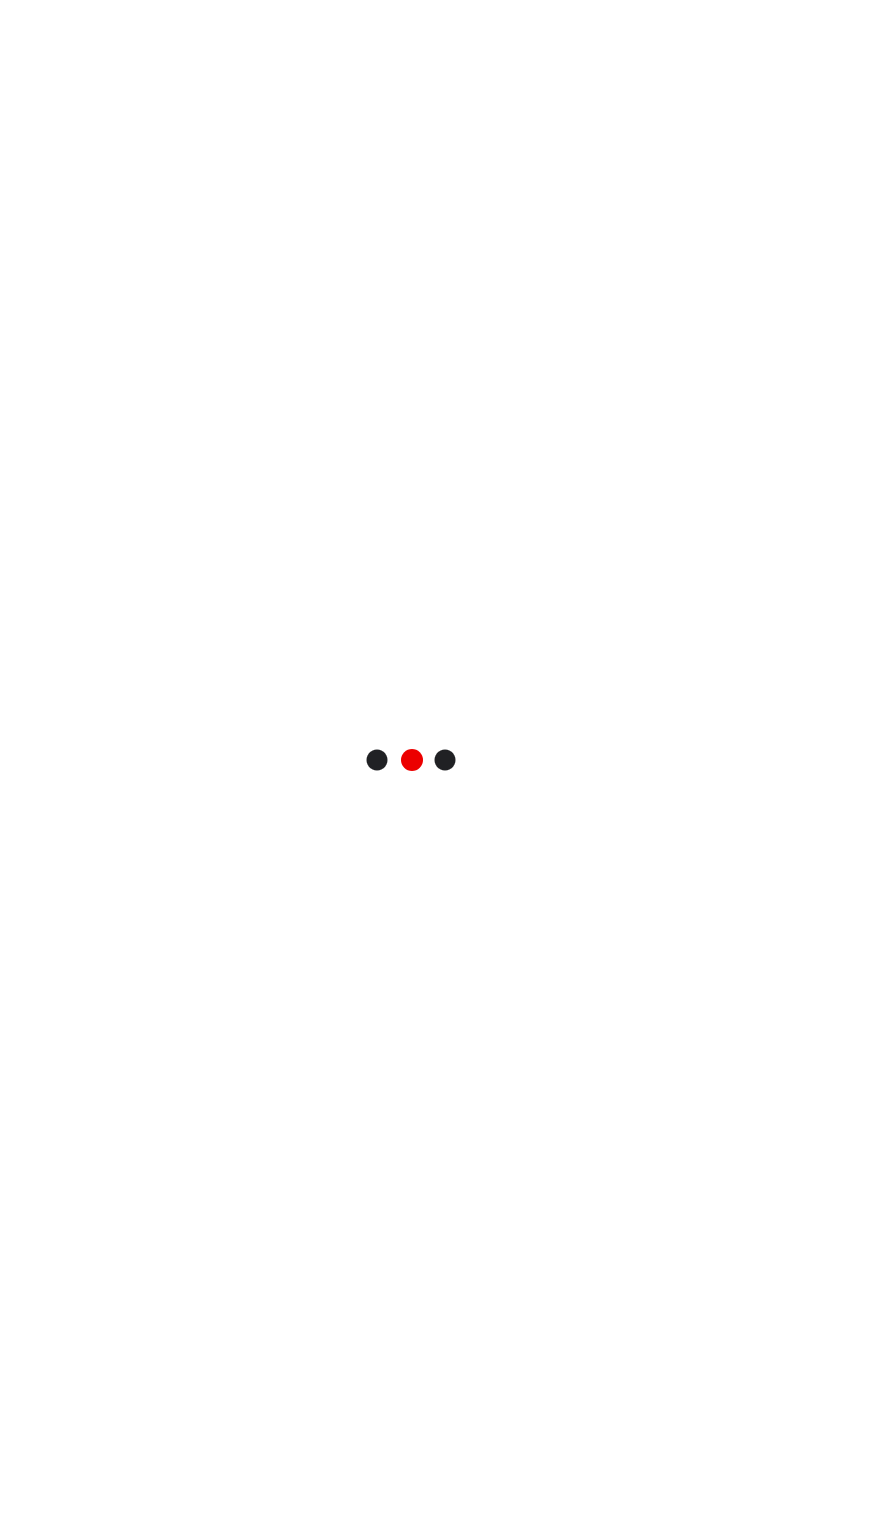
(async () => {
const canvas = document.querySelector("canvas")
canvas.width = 882
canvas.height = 1517
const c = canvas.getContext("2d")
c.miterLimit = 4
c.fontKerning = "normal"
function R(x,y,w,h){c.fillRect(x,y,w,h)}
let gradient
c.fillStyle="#fff"
R(0,0,882,1517)
gradient = c.createRadialGradient(445,760,0,445,760,11)
gradient.addColorStop(.9,"#202124")
gradient.addColorStop(1,"#fff")
c.fillStyle = gradient
R(434,749,22,22)
gradient = c.createRadialGradient(377,760,0,377,760,11)
gradient.addColorStop(.9,"#202124")
gradient.addColorStop(1,"#fff")
c.fillStyle = gradient
R(366,749,22,22)
c.fillStyle="#ec0000"
c.beginPath()
c.arc(412,760,11,0,7)
c.fill()
})()
